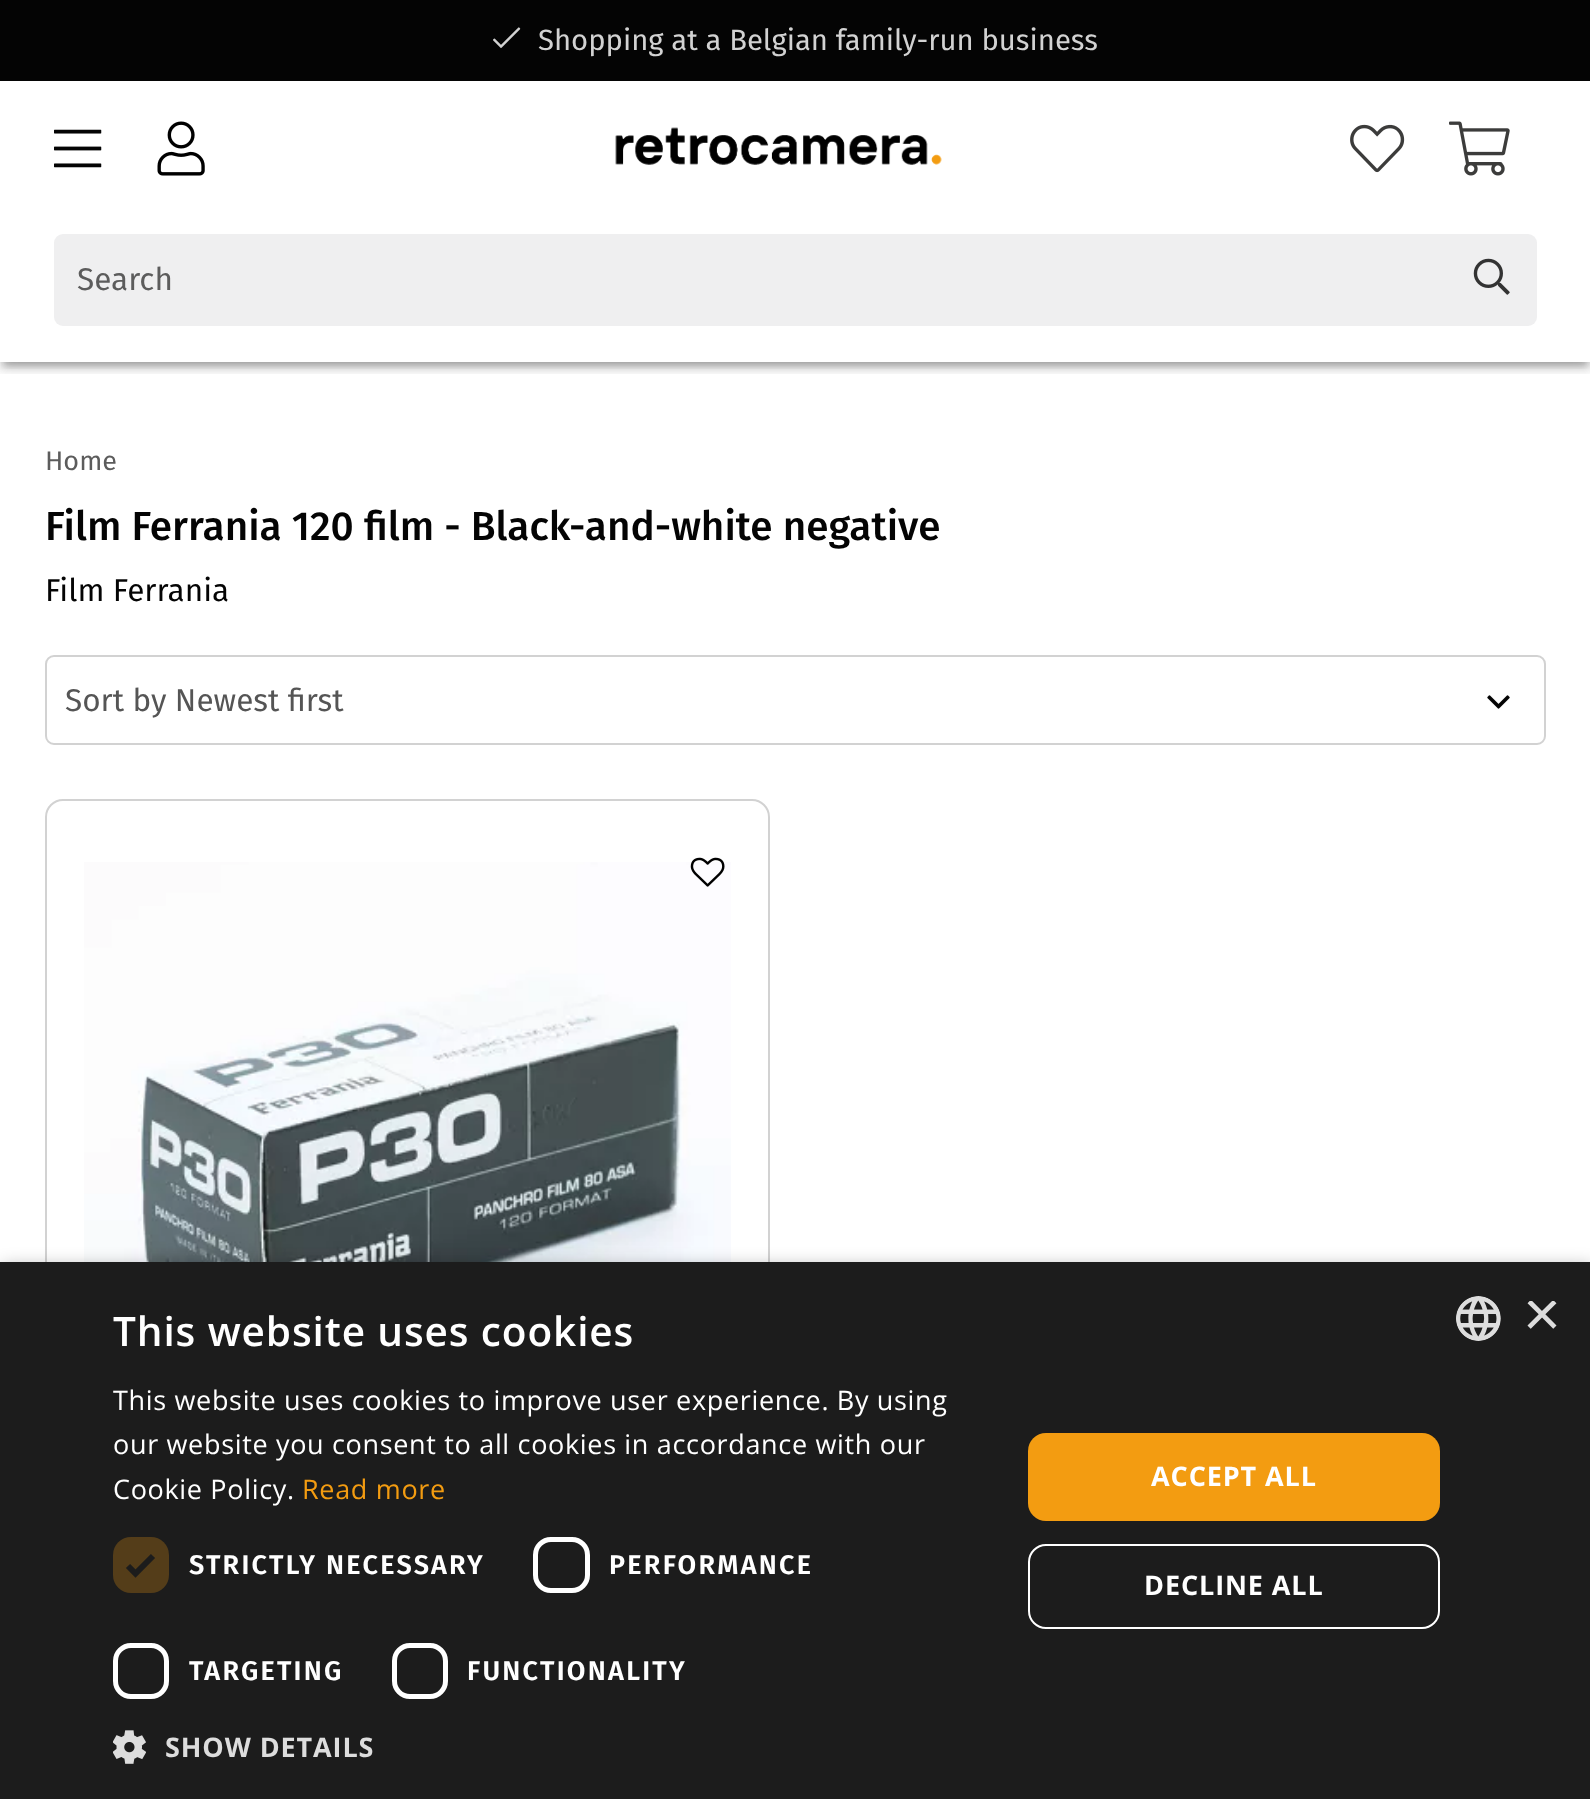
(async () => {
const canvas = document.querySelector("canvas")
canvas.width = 1590
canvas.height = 1799
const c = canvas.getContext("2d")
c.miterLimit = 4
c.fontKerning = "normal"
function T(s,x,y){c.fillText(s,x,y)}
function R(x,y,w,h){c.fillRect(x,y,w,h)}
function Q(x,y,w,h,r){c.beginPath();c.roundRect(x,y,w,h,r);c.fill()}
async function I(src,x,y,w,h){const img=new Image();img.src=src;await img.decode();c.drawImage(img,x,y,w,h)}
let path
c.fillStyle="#fff"
R(0,0,1590,1799)
c.save()
c.beginPath()
c.rect(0,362,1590,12)
c.clip()
c.fillStyle="#0000001f"
c.filter="blur(9px)"
c.beginPath()
c.rect(0,2,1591,363)
c.fill()
c.filter="none"
c.fillStyle="#00000024"
c.filter="blur(4.5px)"
c.beginPath()
c.rect(0,7,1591,362)
c.fill()
c.filter="none"
c.restore()
c.save()
c.beginPath()
c.rect(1,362,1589,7)
c.clip()
c.fillStyle="#00000033"
c.filter="blur(3.5px)"
c.beginPath()
c.rect(5,11,1581,354)
c.fill()
c.filter="none"
c.restore()
c.fillStyle="#040404"
R(0,0,1590,81)
await I("1.png",493,27,28,21)
c.font="29.25px Fira Sans"
c.fillStyle="#d2d2d2"
T("Shopping at a Belgian family-run business",538,50)
await I("2.png",54,129,48,39)
await I("3.png",157,121,48,55)
await I("4.png",615,127,327,38)
await I("5.png",1350,124,55,49)
await I("6.png",1449,121,61,55)
c.fillStyle="#efeff0"
Q(54,234,1483,92,9)
c.font="31.5px Fira Sans"
c.fillStyle="#5c5c5c"
T("Search",77,290)
await I("7.png",1473,258,37,37)
c.font="27px Fira Sans"
T("Home",45,470)
c.font="500 40.5px Fira Sans"
c.fillStyle="#040404"
T("Film Ferrania 120 film - Black-and-white negative",45,540)
c.font="31.5px Fira Sans"
T("Film Ferrania",45,601)
c.beginPath()
c.roundRect(46,656,1499,88,8)
c.strokeStyle="#d2d2d2"
c.lineWidth=2
c.stroke()
c.fillStyle="#555"
T("Sort by Newest first",65,711)
await I("8.png",1487,695,23,14)
c.beginPath()
c.roundRect(46,800,723,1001,17)
c.stroke()
await I("10.png",84,862,647,400)
await I("9.png",690,857,35,30)
c.fillStyle="#00000059"
c.filter="blur(9px)"
c.beginPath()
c.rect(2,1267,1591,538)
c.fill()
c.filter="none"
c.fillStyle="#1c1c1c"
R(0,1262,1590,537)
c.letterSpacing="0.9px"
c.font="600 40.5px Open Sans"
c.fillStyle="#fff"
T("This website uses cookies",113,1346)
c.letterSpacing="0.67px"
c.font="27px Open Sans"
T("This website uses cookies to improve user experience. By using",113,1410)
T("our website you consent to all cookies in accordance with our",113,1454)
T("Cookie Policy.",113,1499)
c.fillStyle="#f39c11"
T("Read more",302,1499)
c.fillStyle="#543d19"
Q(113,1537,56,56,18)
path = new Path2D("M128 1566l7.5 7.5l17.5-17.5")
c.strokeStyle="#1c1c1c"
c.lineWidth=5.9
c.stroke(path)
c.letterSpacing="2.25px"
c.font="600 27px Fira Sans"
c.fillStyle="#fff"
T("STRICTLY NECESSARY",189,1574)
c.beginPath()
c.roundRect(535.5,1539.5,52,51,15.5)
c.strokeStyle="#fff"
c.lineWidth=5
c.stroke()
T("PERFORMANCE",609,1574)
c.beginPath()
c.roundRect(115.5,1645.5,51,51,15.5)
c.stroke()
T("TARGETING",189,1680)
c.beginPath()
c.roundRect(394.5,1645.5,51,51,15.5)
c.stroke()
T("FUNCTIONALITY",467,1680)
await I("11.png",113,1730,33,34)
c.letterSpacing="0.9px"
c.font="bold 27px Open Sans"
c.fillStyle="#ddd"
T("SHOW DETAILS",165,1757)
c.fillStyle="#f39c11"
Q(1028,1433,412,88,18)
c.fillStyle="#fff"
T("ACCEPT ALL",1151,1486)
c.beginPath()
c.roundRect(1029,1545,410,83,17)
c.lineWidth=2
c.stroke()
T("DECLINE ALL",1144,1595)
await I("12.png",1456,1296,45,45)
c.save()
c.beginPath()
c.rect(1523,1301,34,33)
c.clip()
c.letterSpacing="0px"
c.font="65px Liberation Sans"
c.fillStyle="#ddd"
T("×",1523,1336)
c.restore()
})()
